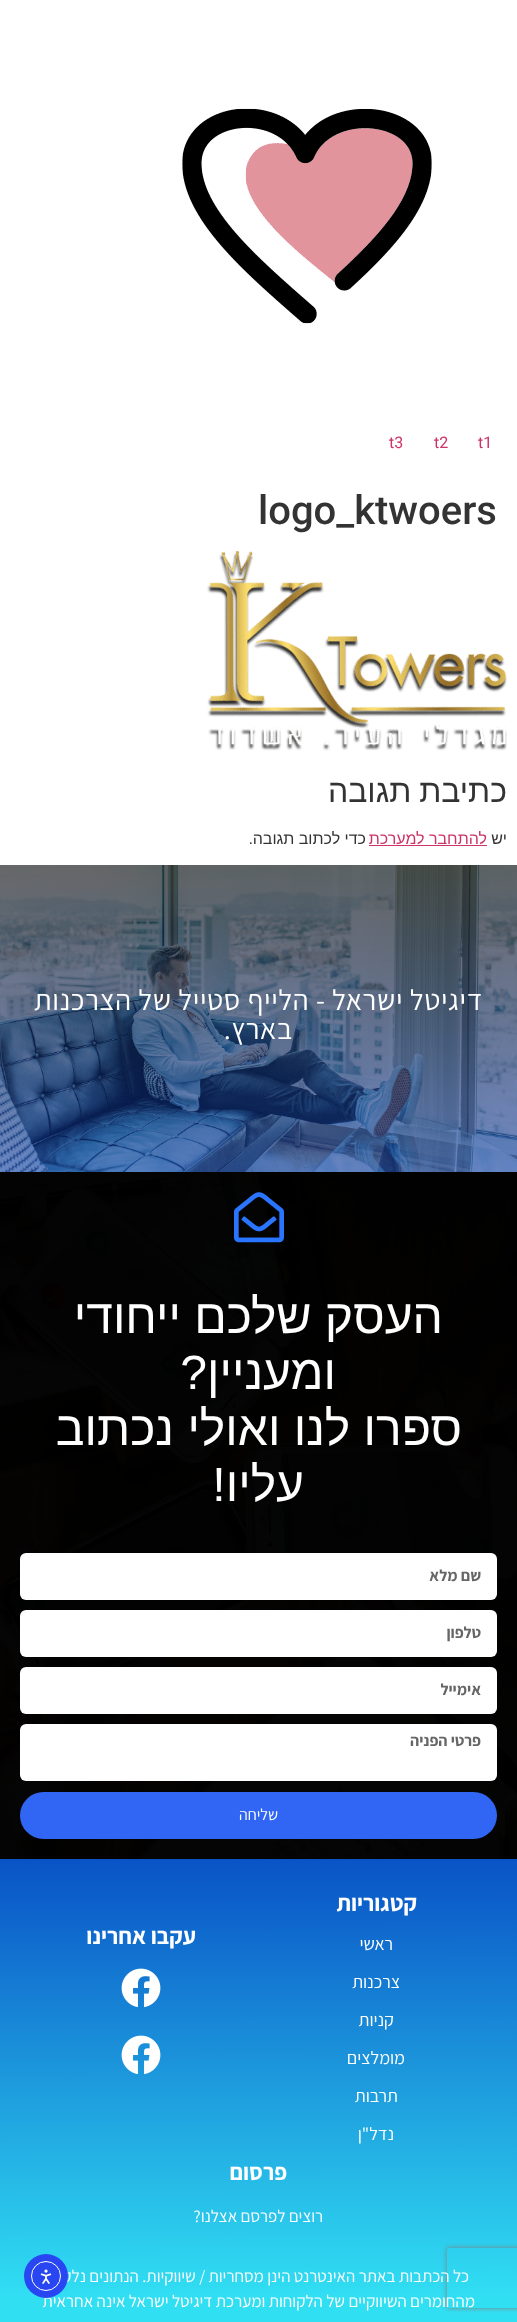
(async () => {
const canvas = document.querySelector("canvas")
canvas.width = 517
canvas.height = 2322
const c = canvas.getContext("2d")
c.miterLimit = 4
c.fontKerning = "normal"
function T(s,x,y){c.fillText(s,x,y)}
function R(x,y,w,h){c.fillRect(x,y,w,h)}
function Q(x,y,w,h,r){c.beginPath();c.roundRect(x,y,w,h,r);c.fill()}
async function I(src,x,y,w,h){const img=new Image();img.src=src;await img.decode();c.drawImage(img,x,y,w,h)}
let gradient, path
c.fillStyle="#fff"
R(0,0,517,2322)
await I("1.png",182,108,250,216)
c.font="16px Roboto"
c.fillStyle="#c36"
T("t1",478,448)
T("t2",434,448)
T("t3",389,448)
c.font="500 40px Roboto"
c.fillStyle="#333"
T("logo_ktwoers",258,524)
await I("2.png",207,551,300,200)
c.wordSpacing="-1px"
c.direction="rtl"
c.font="32px Liberation Sans"
T("כתיבת תגובה",507,802)
c.wordSpacing="0px"
c.font="16px Liberation Sans"
T("יש",507,844)
c.fillStyle="#c36"
T("להתחבר למערכת",487,844)
R(369,845,118,1)
c.fillStyle="#333"
T("כדי לכתוב תגובה",366,844)
c.font="16px Roboto"
T(".",253,844)
await I("3.png",0,865,517,307)
c.letterSpacing="0.7px"
c.font="29px Assistant"
c.fillStyle="#fff"
T("דיגיטל ישראל - הלייף סטייל של הצרכנות",483,1010)
T("בארץ.",293,1039)
await I("4.png",0,1172,517,687)
await I("5.png",234,1192,50,51)
c.letterSpacing="0px"
c.font="48px Liberation Sans"
T("העסק שלכם ייחודי",443,1333)
T("ומעניין?",336,1389)
T("ספרו לנו ואולי נכתוב",462,1445)
T("עליו!",304,1501)
Q(20,1553,477,47,6)
c.font="bold 16px Assistant"
c.fillStyle="#666"
T("שם מלא",481,1581)
c.fillStyle="#fff"
Q(20,1610,477,47,6)
c.fillStyle="#666"
T("טלפון",481,1638)
c.fillStyle="#fff"
Q(20,1667,477,47,6)
c.fillStyle="#666"
T("אימייל",481,1695)
c.fillStyle="#fff"
Q(20,1724,477,57,6)
c.fillStyle="#666"
T("פרטי הפניה",481,1746)
c.fillStyle="#3165f3"
Q(20,1792,477,47,23.5)
c.font="16px Assistant"
c.fillStyle="#fff"
T("שליחה",278,1820)
gradient = c.createLinearGradient(258,1859,259,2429)
gradient.addColorStop(0,"#0953c6")
gradient.addColorStop(.77,"#31dff3")
c.fillStyle = gradient
R(0,1859,517,463)
c.save()
path = new Path2D("M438 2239h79v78h-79zm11 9h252c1 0 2 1 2 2v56c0 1-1 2-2 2h-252c-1 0-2-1-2-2v-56c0-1 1-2 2-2z")
c.clip(path,"evenodd")
c.fillStyle="#808080"
c.filter="blur(2.5px)"
c.beginPath()
c.roundRect(447,2248,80,60,2)
c.fill()
c.filter="none"
c.restore()
c.font="bold 23px Assistant"
c.fillStyle="#fff"
T("קטגוריות",417,1911)
c.font="18px Assistant"
T("ראשי",393,1950)
T("צרכנות",400,1988)
T("קניות",394,2026)
T("מומלצים",405,2064)
T("תרבות",398,2102)
T("נדל\"ן",394,2140)
c.font="bold 23px Assistant"
T("עקבו אחרינו",196,1944)
await I("6.png",121,1968,40,40)
await I("7.png",121,2035,40,40)
T("פרסום",287,2180)
c.font="17px Assistant"
T("רוצים לפרסם אצלנו?",323,2222)
T("כל הכתבות באתר האינטרנט הינן מסחריות / שיווקיות. הנתונים נלקחו",469,2282)
T("מהחומרים השיווקיים של הלקוחות ומערכת דיגיטל ישראל אינה אחראית",475,2307)
c.fillStyle="#2847f3"
c.beginPath()
c.arc(46,2276,22,0,7)
c.fill()
c.beginPath()
c.arc(46,2276,14.5,0,7)
c.strokeStyle="#fff"
c.stroke()
await I("8.png",40,2269,12,15)
})()
